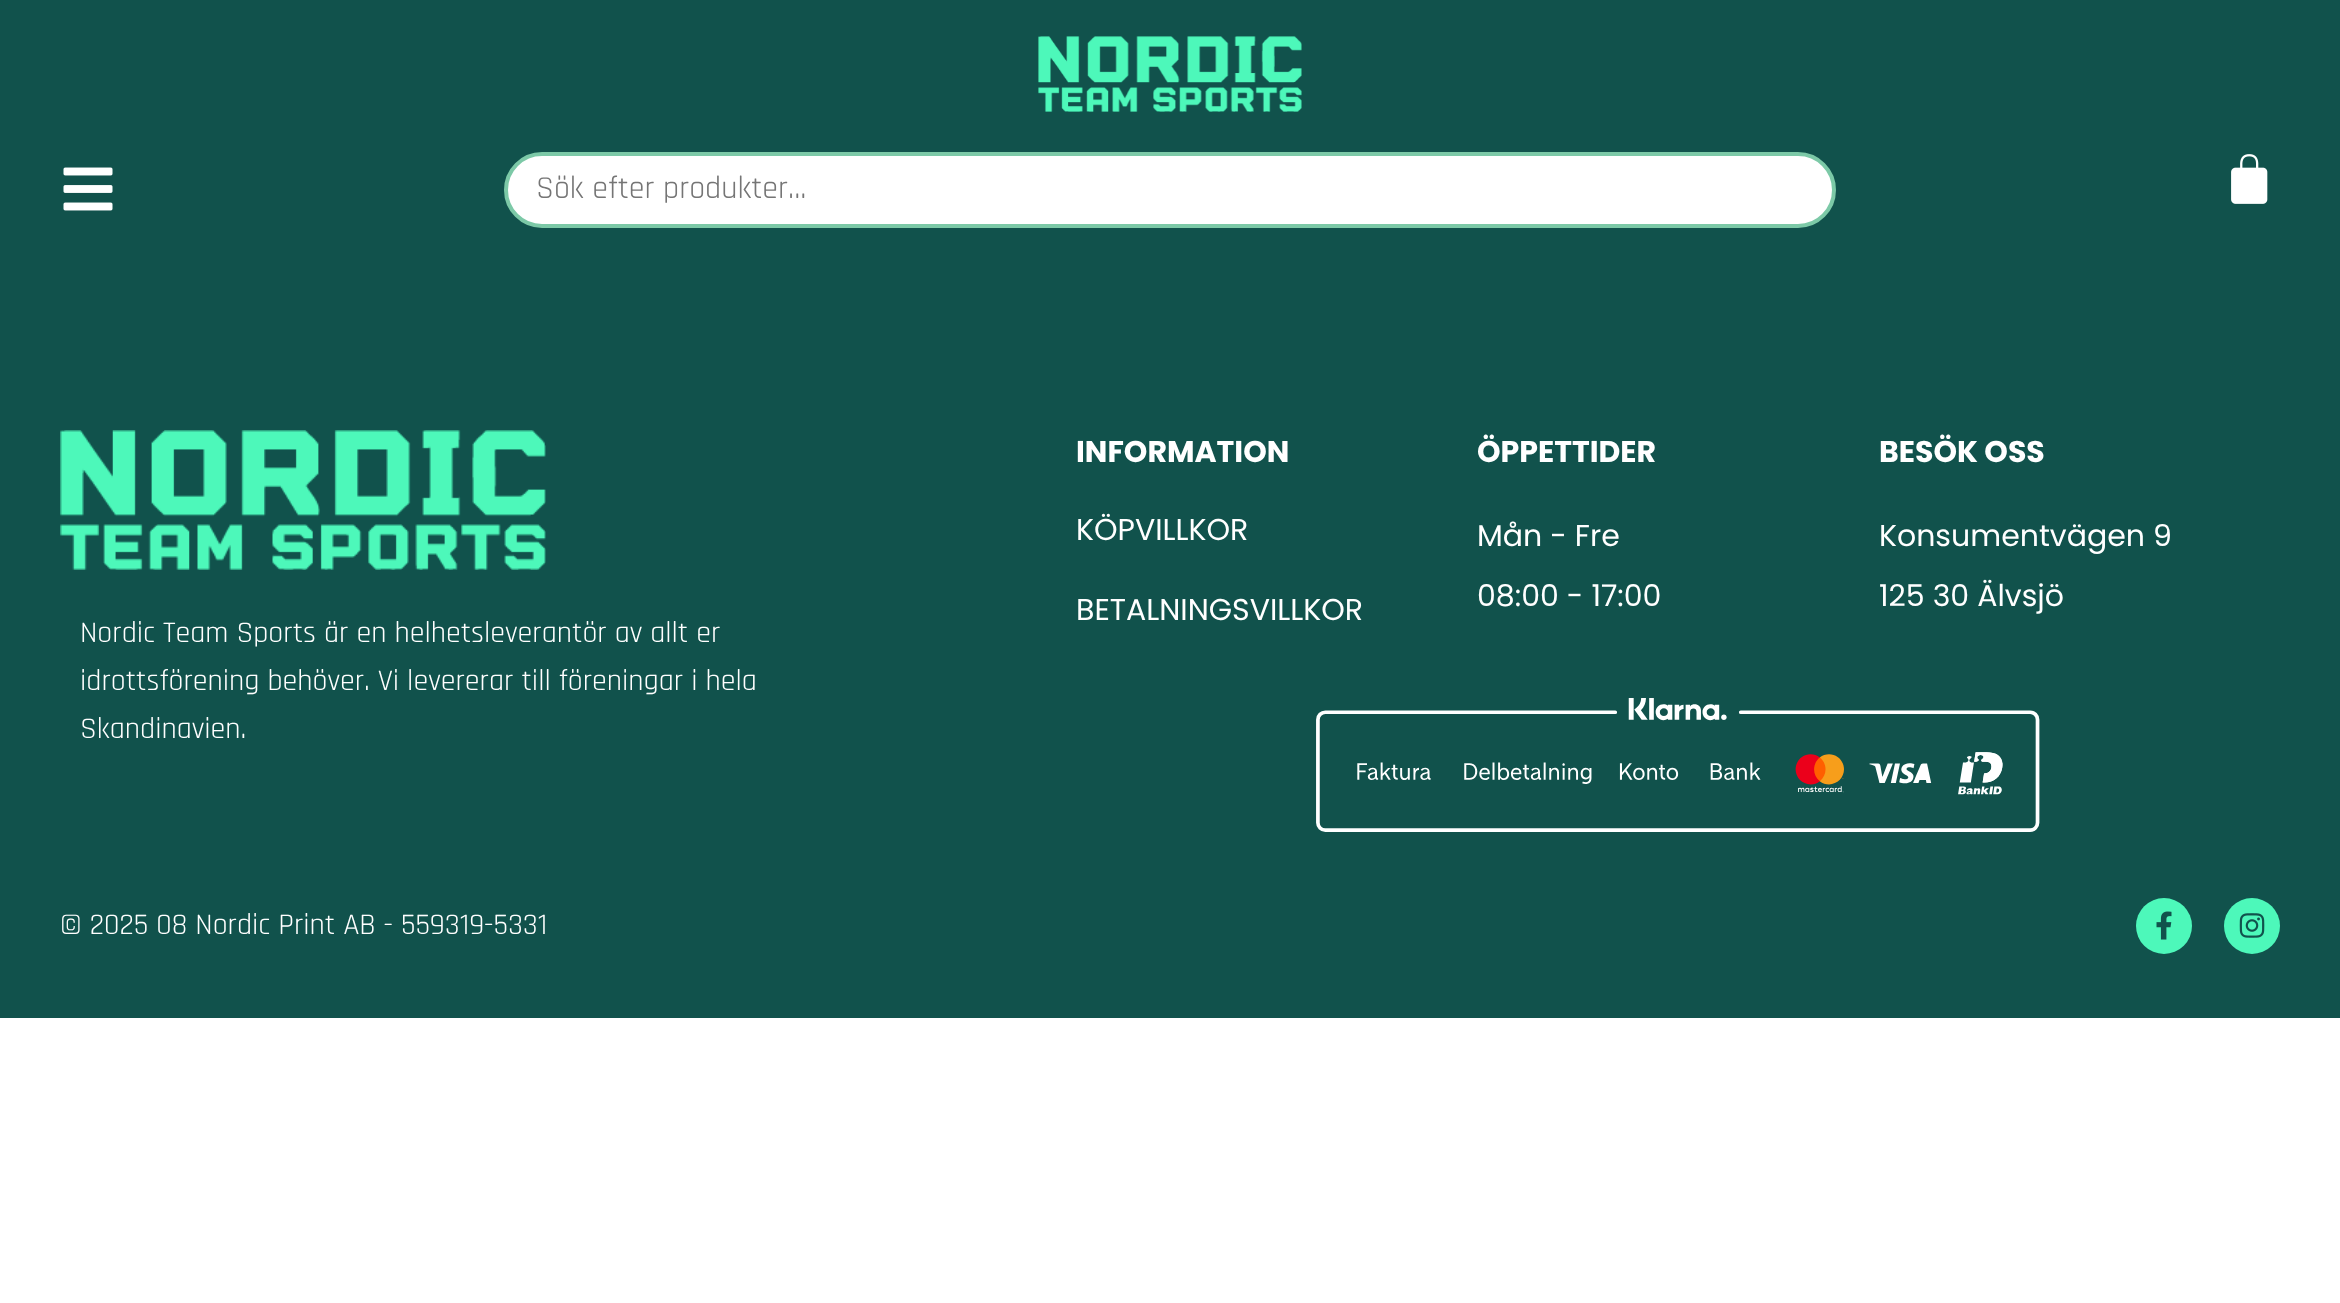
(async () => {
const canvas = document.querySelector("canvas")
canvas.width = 2340
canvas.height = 1303
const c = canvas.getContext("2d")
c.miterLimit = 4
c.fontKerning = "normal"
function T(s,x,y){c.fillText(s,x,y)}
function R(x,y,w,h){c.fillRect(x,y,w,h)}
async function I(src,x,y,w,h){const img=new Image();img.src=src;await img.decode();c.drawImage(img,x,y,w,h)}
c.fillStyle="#fff"
R(0,0,2340,1303)
c.fillStyle="#11524c"
R(0,0,2340,1018)
await I("1.png",1038,36,264,76)
await I("2.png",63,167,50,44)
c.fillStyle="#fff"
c.beginPath()
c.roundRect(506,154,1328,72,36)
c.fill()
c.strokeStyle="#7cc9a7"
c.lineWidth=4
c.stroke()
c.font="32px Rajdhani"
c.fillStyle="#757575"
T("Sök efter produkter...",536,198)
await I("3.png",2231,154,37,50)
c.font="bold 30px Poppins"
c.fillStyle="#fff"
T("INFORMATION",1076,462)
c.font="30px Poppins"
T("KÖPVILLKOR",1076,540)
T("BETALNINGSVILLKOR",1076,620)
c.font="bold 30px Poppins"
T("ÖPPETTIDER",1477,462)
c.font="30px Poppins"
T("Mån - Fre",1477,546)
T("08:00 - 17:00",1477,606)
c.font="bold 30px Poppins"
T("BESÖK OSS",1879,462)
c.font="30px Poppins"
T("Konsumentvägen 9",1879,546)
T("125 30 Älvsjö",1879,606)
await I("4.png",1316,698,724,134)
await I("5.png",60,430,486,140)
c.font="30px Rajdhani"
T("Nordic Team Sports är en helhetsleverantör av allt er",80,642)
T("idrottsförening behöver. Vi levererar till föreningar i hela",80,690)
T("Skandinavien.",80,738)
T("© 2025 08 Nordic Print AB - 559319-5331",60,934)
c.fillStyle="#4df8ba"
c.beginPath()
c.arc(2164,926,28,0,7)
c.fill()
await I("6.png",2156,911,16,29)
c.beginPath()
c.arc(2252,926,28,0,7)
c.fill()
await I("7.png",2239,913,26,25)
})()
